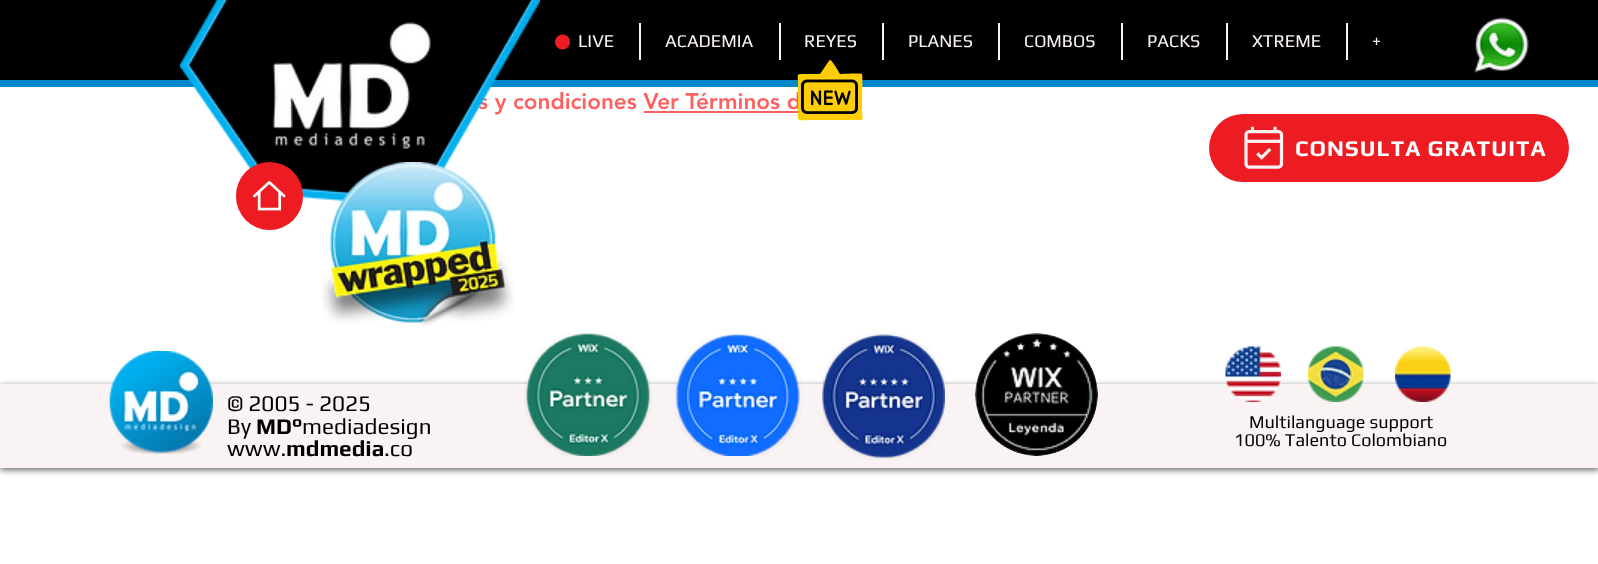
(async () => {
const canvas = document.querySelector("canvas")
canvas.width = 1598
canvas.height = 564
const c = canvas.getContext("2d")
c.miterLimit = 4
c.fontKerning = "normal"
function T(s,x,y){c.fillText(s,x,y)}
function R(x,y,w,h){c.fillRect(x,y,w,h)}
function Q(x,y,w,h,r){c.beginPath();c.roundRect(x,y,w,h,r);c.fill()}
async function I(src,x,y,w,h){const img=new Image();img.src=src;await img.decode();c.drawImage(img,x,y,w,h)}
let path
c.fillStyle="#fff"
R(0,0,1598,564)
c.fillStyle="#000"
R(0,0,1598,80)
c.fillStyle="#0088cb"
R(0,80,1598,7)
c.strokeStyle="#08c"
c.lineWidth=2
c.strokeRect(217,90,25,25)
c.font="900 22.5px 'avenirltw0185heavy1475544'"
c.fillStyle="#fe6060"
T("s y condiciones Ver Términos d",478,109)
await I("1.png",180,0,360,202)
await I("2.png",1474,17,55,56)
await I("3.png",272,22,159,127)
await I("4.png",555,34,15,16)
c.font="18px Play"
c.fillStyle="#faf2f2"
T("LIVE",578,47)
R(639,23,2,37)
T("ACADEMIA",665,47)
R(779,23,2,37)
T("REYES",804,47)
R(882,23,2,37)
T("PLANES",908,47)
R(998,23,2,37)
T("COMBOS",1024,47)
R(1121,23,2,37)
T("PACKS",1147,47)
R(1226,23,2,37)
T("XTREME",1252,47)
R(1346,23,2,37)
T("+",1372,47)
c.fillStyle="#fe6060"
R(644,111,155,2)
c.fillStyle="#ffcd05"
path = new Path2D("M830 60c2 0 9 12 10 14c2 0 21-1 22 0c1 1 0 27 0 30v7c0 3 2 9-1 9h-51c-13 0-12 3-12-9v-29c0-8-2-8 5-8h17c2-2 9-14 10-14z")
c.fill(path)
await I("5.png",801,79,57,35)
c.fillStyle="#ed1c23"
Q(236,162,67,68,33.5)
await I("6.png",253,181,33,30)
await I("7.png",322,162,192,164)
c.fillStyle="#faf3f3"
R(0,384,1598,84)
c.save()
path = new Path2D("M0 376h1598v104h-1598zm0 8h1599v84h-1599z")
c.clip(path,"evenodd")
c.fillStyle="#00000099"
c.filter="blur(3px)"
c.beginPath()
c.rect(0,386,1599,84)
c.fill()
c.filter="none"
c.restore()
await I("8.png",109,351,104,103)
await I("9.png",524,333,128,123)
await I("10.png",674,334,128,122)
await I("11.png",822,332,123,128)
c.fillStyle="#fff"
c.beginPath()
c.arc(1036.5,394.5,61.5,0,7)
c.fill()
await I("12.png",975,333,123,123)
await I("13.png",1225,346,56,56)
await I("14.png",1308,346,56,56)
await I("15.png",1395,346,56,56)
c.font="22.5px Play"
c.fillStyle="#000"
T("© 2005 - 2025",227,411)
T("By",227,434)
c.font="bold 22.5px Play"
T("MD°",256,434)
c.font="22.5px Play"
T("mediadesign",302,434)
T("www.",227,456)
c.font="bold 22.5px Play"
T("mdmedia",286,456)
c.font="22.5px Play"
T(".co",384,456)
c.font="18px Play"
T("Multilanguage support",1249,428)
T("100% Talento Colombiano",1234,446)
c.fillStyle="#ed1c23"
Q(1209,114,360,68,34)
await I("16.png",1244,126,40,43)
c.letterSpacing="1.1px"
c.font="bold 22.5px Play"
c.fillStyle="#fff"
T("CONSULTA GRATUITA",1295,156)
})()
